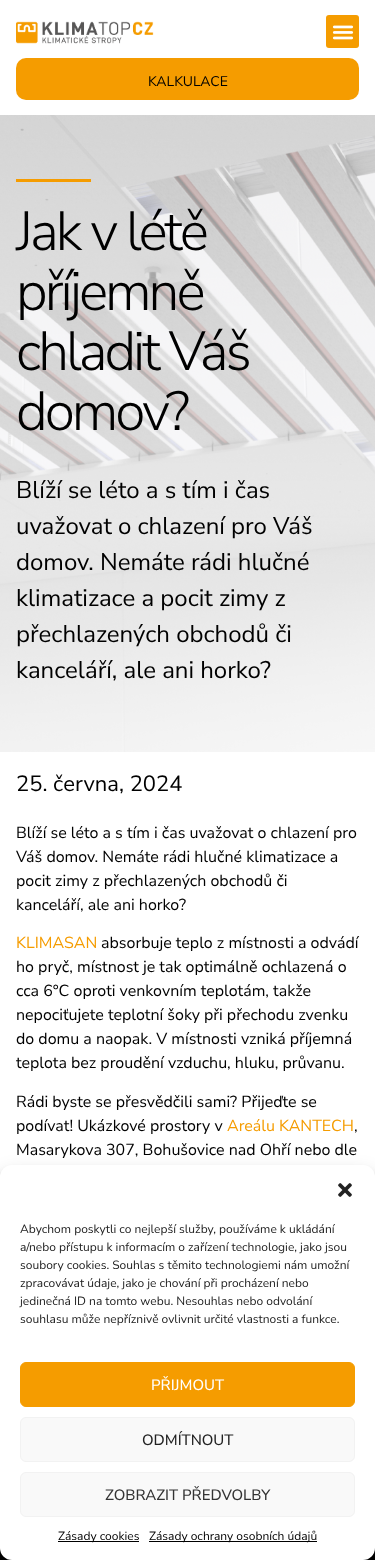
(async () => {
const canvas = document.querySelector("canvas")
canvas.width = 375
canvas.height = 1560
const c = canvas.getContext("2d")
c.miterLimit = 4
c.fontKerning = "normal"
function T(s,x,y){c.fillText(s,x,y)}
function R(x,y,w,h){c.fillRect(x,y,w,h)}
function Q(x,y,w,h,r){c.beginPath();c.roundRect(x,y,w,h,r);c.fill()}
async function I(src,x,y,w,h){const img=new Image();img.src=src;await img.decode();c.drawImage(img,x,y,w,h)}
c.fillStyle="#fff"
R(0,0,375,1560)
await I("1.png",16,21,138,23)
c.fillStyle="#f59c00"
Q(326,15,33,33,3)
await I("2.png",332,25,22,15)
Q(16,58,343,42,10)
c.font="14px Nunito Sans"
c.fillStyle="#000"
T("KALKULACE",148,86)
await I("3.png",0,115,375,637)
c.fillStyle="#f59c00"
R(16,179,75,3)
c.letterSpacing="-3px"
c.font="300 55px Nunito Sans"
c.fillStyle="#000"
T("Jak v létě",16,250)
T("příjemně",16,310)
T("chladit Váš",16,370)
T("domov?",16,430)
c.letterSpacing="0px"
c.font="24px Nunito Sans"
T("Blíží se léto a s tím i čas",16,498)
T("uvažovat o chlazení pro Váš",16,534)
T("domov. Nemáte rádi hlučné",16,570)
T("klimatizace a pocit zimy z",16,606)
T("přechlazených obchodů či",16,642)
T("kanceláří, ale ani horko?",16,678)
c.font="22px Nunito Sans"
T("25. června, 2024",16,791)
c.font="16px Nunito Sans"
T("Blíží se léto a s tím i čas uvažovat o chlazení pro",16,838)
T("Váš domov. Nemáte rádi hlučné klimatizace a",16,862)
T("pocit zimy z přechlazených obchodů či",16,886)
T("kanceláří, ale ani horko?",16,910)
c.fillStyle="#f59c00"
T("KLIMASAN",16,948)
c.fillStyle="#000"
T("absorbuje teplo z místnosti a odvádí",101,948)
T("ho pryč, místnost je tak optimálně ochlazená o",16,972)
T("cca 6°C oproti venkovním teplotám, takže",16,996)
T("nepociťujete teplotní šoky při přechodu zvenku",16,1020)
T("do domu a naopak. V místnosti vzniká příjemná",16,1044)
T("teplota bez proudění vzduchu, hluku, průvanu.",16,1068)
T("Rádi byste se přesvědčili sami? Přijeďte se",16,1107)
T("podívat! Ukázkové prostory v",16,1131)
c.fillStyle="#f59c00"
T("Areálu KANTECH",227,1131)
c.fillStyle="#000"
T(",",354,1131)
T("Masarykova 307, Bohušovice nad Ohří nebo dle",16,1155)
R(0,1548,375,12)
c.fillStyle="#0000003b"
c.filter="blur(3px)"
c.beginPath()
c.roundRect(0,1171,375,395,12)
c.fill()
c.filter="none"
c.fillStyle="#00000030"
c.filter="blur(10px)"
c.beginPath()
c.roundRect(0,1175,375,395,12)
c.fill()
c.filter="none"
c.fillStyle="#fff"
Q(0,1165,375,395,12)
await I("4.png",338,1183,14,14)
c.font="12px Nunito Sans"
c.fillStyle="#222"
T("Abychom poskytli co nejlepší služby, používáme k ukládání",20,1233)
T("a/nebo přístupu k informacím o zařízení technologie, jako jsou",20,1251)
T("soubory cookies. Souhlas s těmito technologiemi nám umožní",20,1269)
T("zpracovávat údaje, jako je chování při procházení nebo",20,1287)
T("jedinečná ID na tomto webu. Nesouhlas nebo odvolání",20,1305)
T("souhlasu může nepříznivě ovlivnit určité vlastnosti a funkce.",20,1323)
c.fillStyle="#f59c00"
c.beginPath()
c.roundRect(20.5,1362.5,334,44,5.5)
c.fill()
c.strokeStyle="#f59c00"
c.stroke()
c.font="500 15px Nunito Sans"
c.fillStyle="#fff"
T("PŘIJMOUT",151,1390)
c.fillStyle="#f9f9f9"
c.beginPath()
c.roundRect(20.5,1417.5,334,44,5.5)
c.fill()
c.strokeStyle="#f2f2f2"
c.stroke()
c.fillStyle="#222"
T("ODMÍTNOUT",142,1445)
c.fillStyle="#f9f9f9"
c.beginPath()
c.roundRect(20.5,1472.5,334,44,5.5)
c.fill()
c.stroke()
c.fillStyle="#333"
T("ZOBRAZIT PŘEDVOLBY",105,1500)
c.fillStyle="#000"
R(58,1541,81,1)
c.font="12px Nunito Sans"
T("Zásady cookies",58,1540)
R(149,1541,168,1)
T("Zásady ochrany osobních údajů",149,1540)
})()
